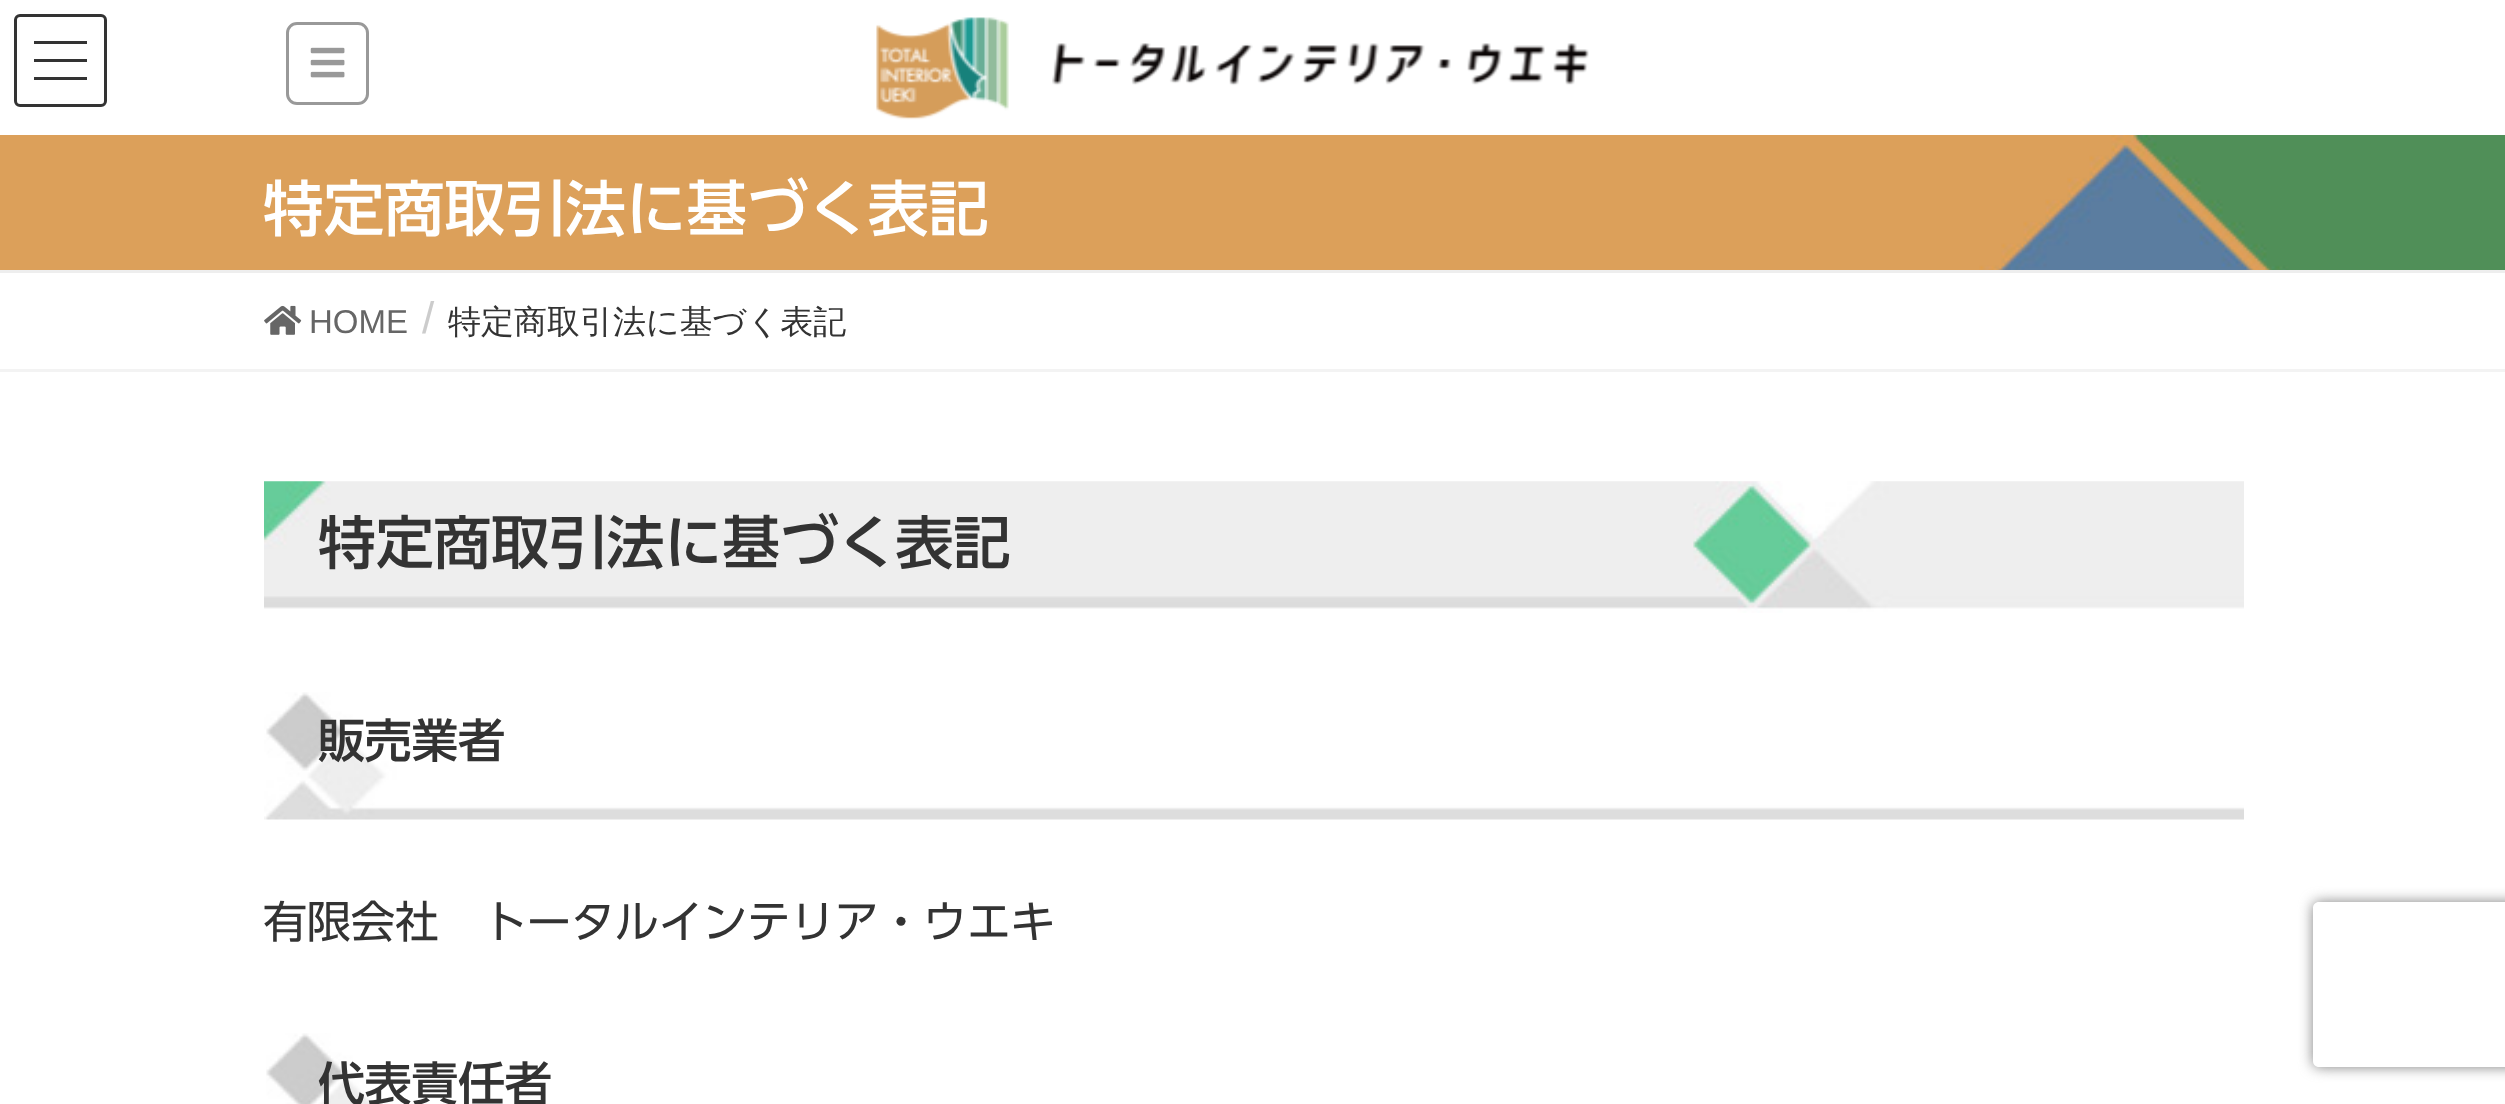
(async () => {
const canvas = document.querySelector("canvas")
canvas.width = 2505
canvas.height = 1104
const c = canvas.getContext("2d")
c.miterLimit = 4
c.fontKerning = "normal"
function T(s,x,y){c.fillText(s,x,y)}
function R(x,y,w,h){c.fillRect(x,y,w,h)}
async function I(src,x,y,w,h){const img=new Image();img.src=src;await img.decode();c.drawImage(img,x,y,w,h)}
let path
c.fillStyle="#fff"
R(0,0,2505,1104)
c.fillStyle="#333"
R(34,41,53,3)
R(34,59,53,3)
R(34,77,53,3)
c.beginPath()
c.roundRect(15.5,15.5,90,90,4.5)
c.strokeStyle="#333"
c.lineWidth=3
c.stroke()
c.beginPath()
c.roundRect(287.5,23.5,80,80,9.5)
c.strokeStyle="#999"
c.stroke()
await I("1.png",310,47,35,31)
await I("2.png",876,17,713,103)
await I("3.png",0,135,2505,135)
c.fillStyle="#eee"
R(0,270,2505,3)
c.font="500 60.5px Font"
c.fillStyle="#fff"
T("特定商取引法に基づく表記",263,231)
c.fillStyle="#f3f3f3"
R(0,369,2505,3)
await I("4.png",264,305,38,30)
c.font="33px Liberation Sans"
c.fillStyle="#666"
T("HOME",309,333)
c.font="44px Liberation Sans"
c.fillStyle="#ccc"
T("/",422,333)
c.font="500 33px WenQuanYi Zen Hei"
c.fillStyle="#333"
T("特定商取引法に基づく表記",448,333)
await I("5.png",264,481,1980,132)
c.font="500 57.75px Font"
T("特定商取引法に基づく表記",318,564)
await I("6.png",264,692,1980,128)
c.font="500 46.75px Font"
T("販売業者",318,758)
c.font="44px Font"
T("有限会社　トータルインテリア・ウエキ",263,938)
await I("7.png",266,1033,107,71)
c.font="500 46.75px Font"
T("代表責任者",318,1101)
c.save()
path = new Path2D("M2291 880h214v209h-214zm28 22h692c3.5 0 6 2.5 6 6v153c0 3.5-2.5 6-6 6h-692c-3.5 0-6-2.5-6-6v-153c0-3.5 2.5-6 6-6z")
c.clip(path,"evenodd")
c.fillStyle="#808080"
c.filter="blur(7px)"
c.beginPath()
c.roundRect(2313,902,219,165,6)
c.fill()
c.filter="none"
c.restore()
})()
